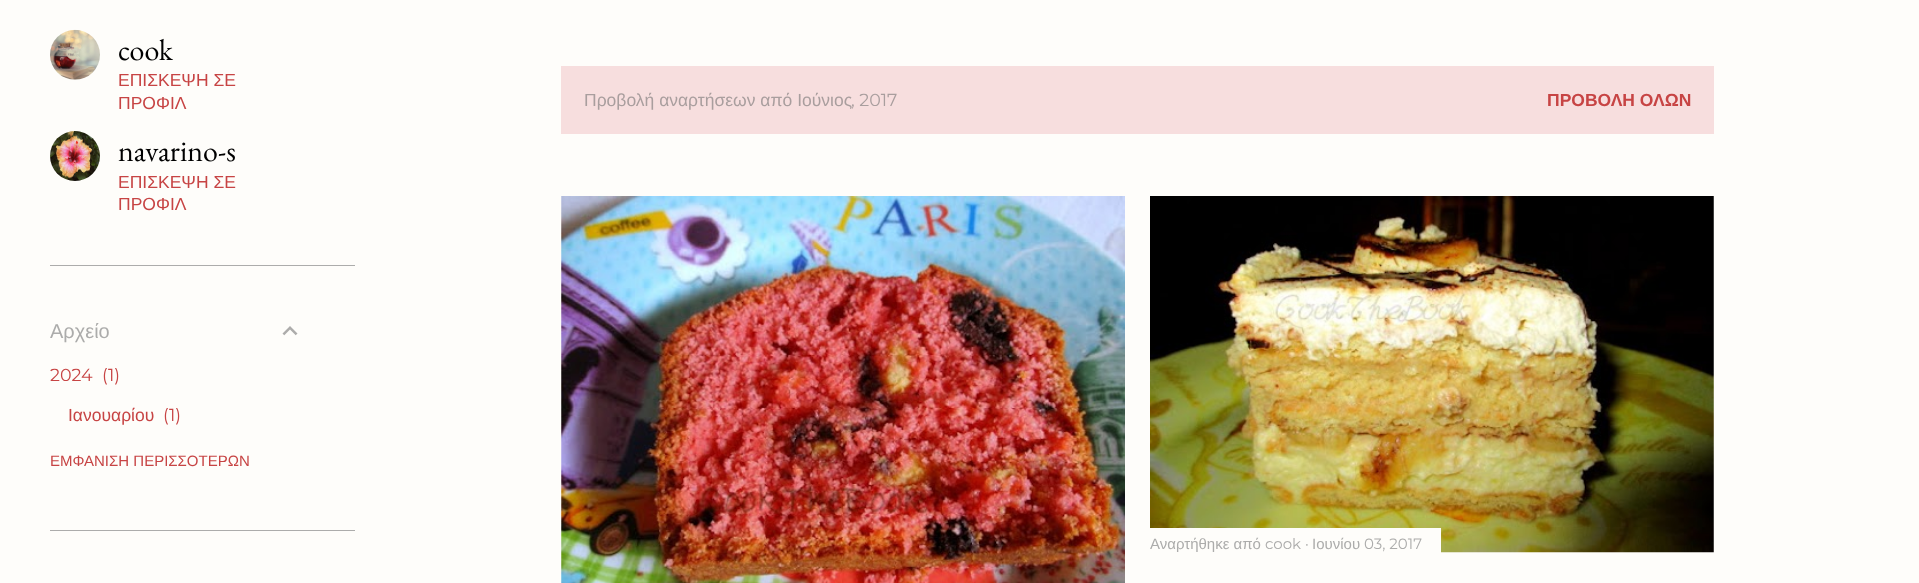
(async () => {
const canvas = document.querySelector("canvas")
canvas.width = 1919
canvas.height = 583
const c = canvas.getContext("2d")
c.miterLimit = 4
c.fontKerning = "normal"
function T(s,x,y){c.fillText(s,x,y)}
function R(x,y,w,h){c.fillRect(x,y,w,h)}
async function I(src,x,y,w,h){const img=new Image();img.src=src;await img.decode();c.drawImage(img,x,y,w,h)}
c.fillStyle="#fefdfa"
R(0,0,1919,583)
await I("1.png",50,29,50,51)
c.font="30px EB Garamond"
c.fillStyle="#000"
T("cook",118,60)
c.font="17.5px Liberation Sans"
c.fillStyle="#c74444"
T("ΕΠΙΣΚΕΨΗ ΣΕ",118,86)
T("ΠΡΟΦΙΛ",118,109)
await I("2.png",50,131,50,50)
c.font="30px EB Garamond"
c.fillStyle="#000"
T("navarino-s",118,161)
c.font="17.5px Liberation Sans"
c.fillStyle="#c74444"
T("ΕΠΙΣΚΕΨΗ ΣΕ",118,188)
T("ΠΡΟΦΙΛ",118,210)
c.fillStyle="#acacab"
R(50,265,305,1)
c.font="20px Liberation Sans"
T("Αρχείο",50,338)
await I("3.png",282,326,16,10)
c.font="17.5px Montserrat"
c.fillStyle="#c74444"
T("2024",50,381)
T("(1)",102,381)
c.font="17.5px Liberation Sans"
T("Ιανουαρίου",68,421)
c.font="17.5px Montserrat"
T("(1)",163,421)
c.font="15px Liberation Sans"
T("ΕΜΦΑΝΙΣΗ ΠΕΡΙΣΣΟΤΕΡΩΝ",50,466)
c.fillStyle="#acacab"
R(50,530,305,1)
c.fillStyle="#f7dede"
R(561,66,1153,68)
c.font="17.5px Liberation Sans"
c.fillStyle="#a99e9e"
T("Προβολή αναρτήσεων από Ιούνιος",584,106)
c.font="17.5px Montserrat"
T(", 2017",851,106)
c.font="bold 17.5px Liberation Sans"
c.fillStyle="#c74444"
T("ΠΡΟΒΟΛΗ ΟΛΩΝ",1547,106)
await I("4.png",561,196,564,387)
await I("5.png",1150,196,564,357)
c.fillStyle="#fefdfa"
R(1150,528,291,25)
c.font="15px Liberation Sans"
c.fillStyle="#acacab"
T("Αναρτήθηκε από",1150,549)
c.font="15px Montserrat"
T("cook ·",1265,549)
c.font="15px Liberation Sans"
T("Ιουνίου",1312,549)
c.font="15px Montserrat"
T("03, 2017",1364,549)
})()
